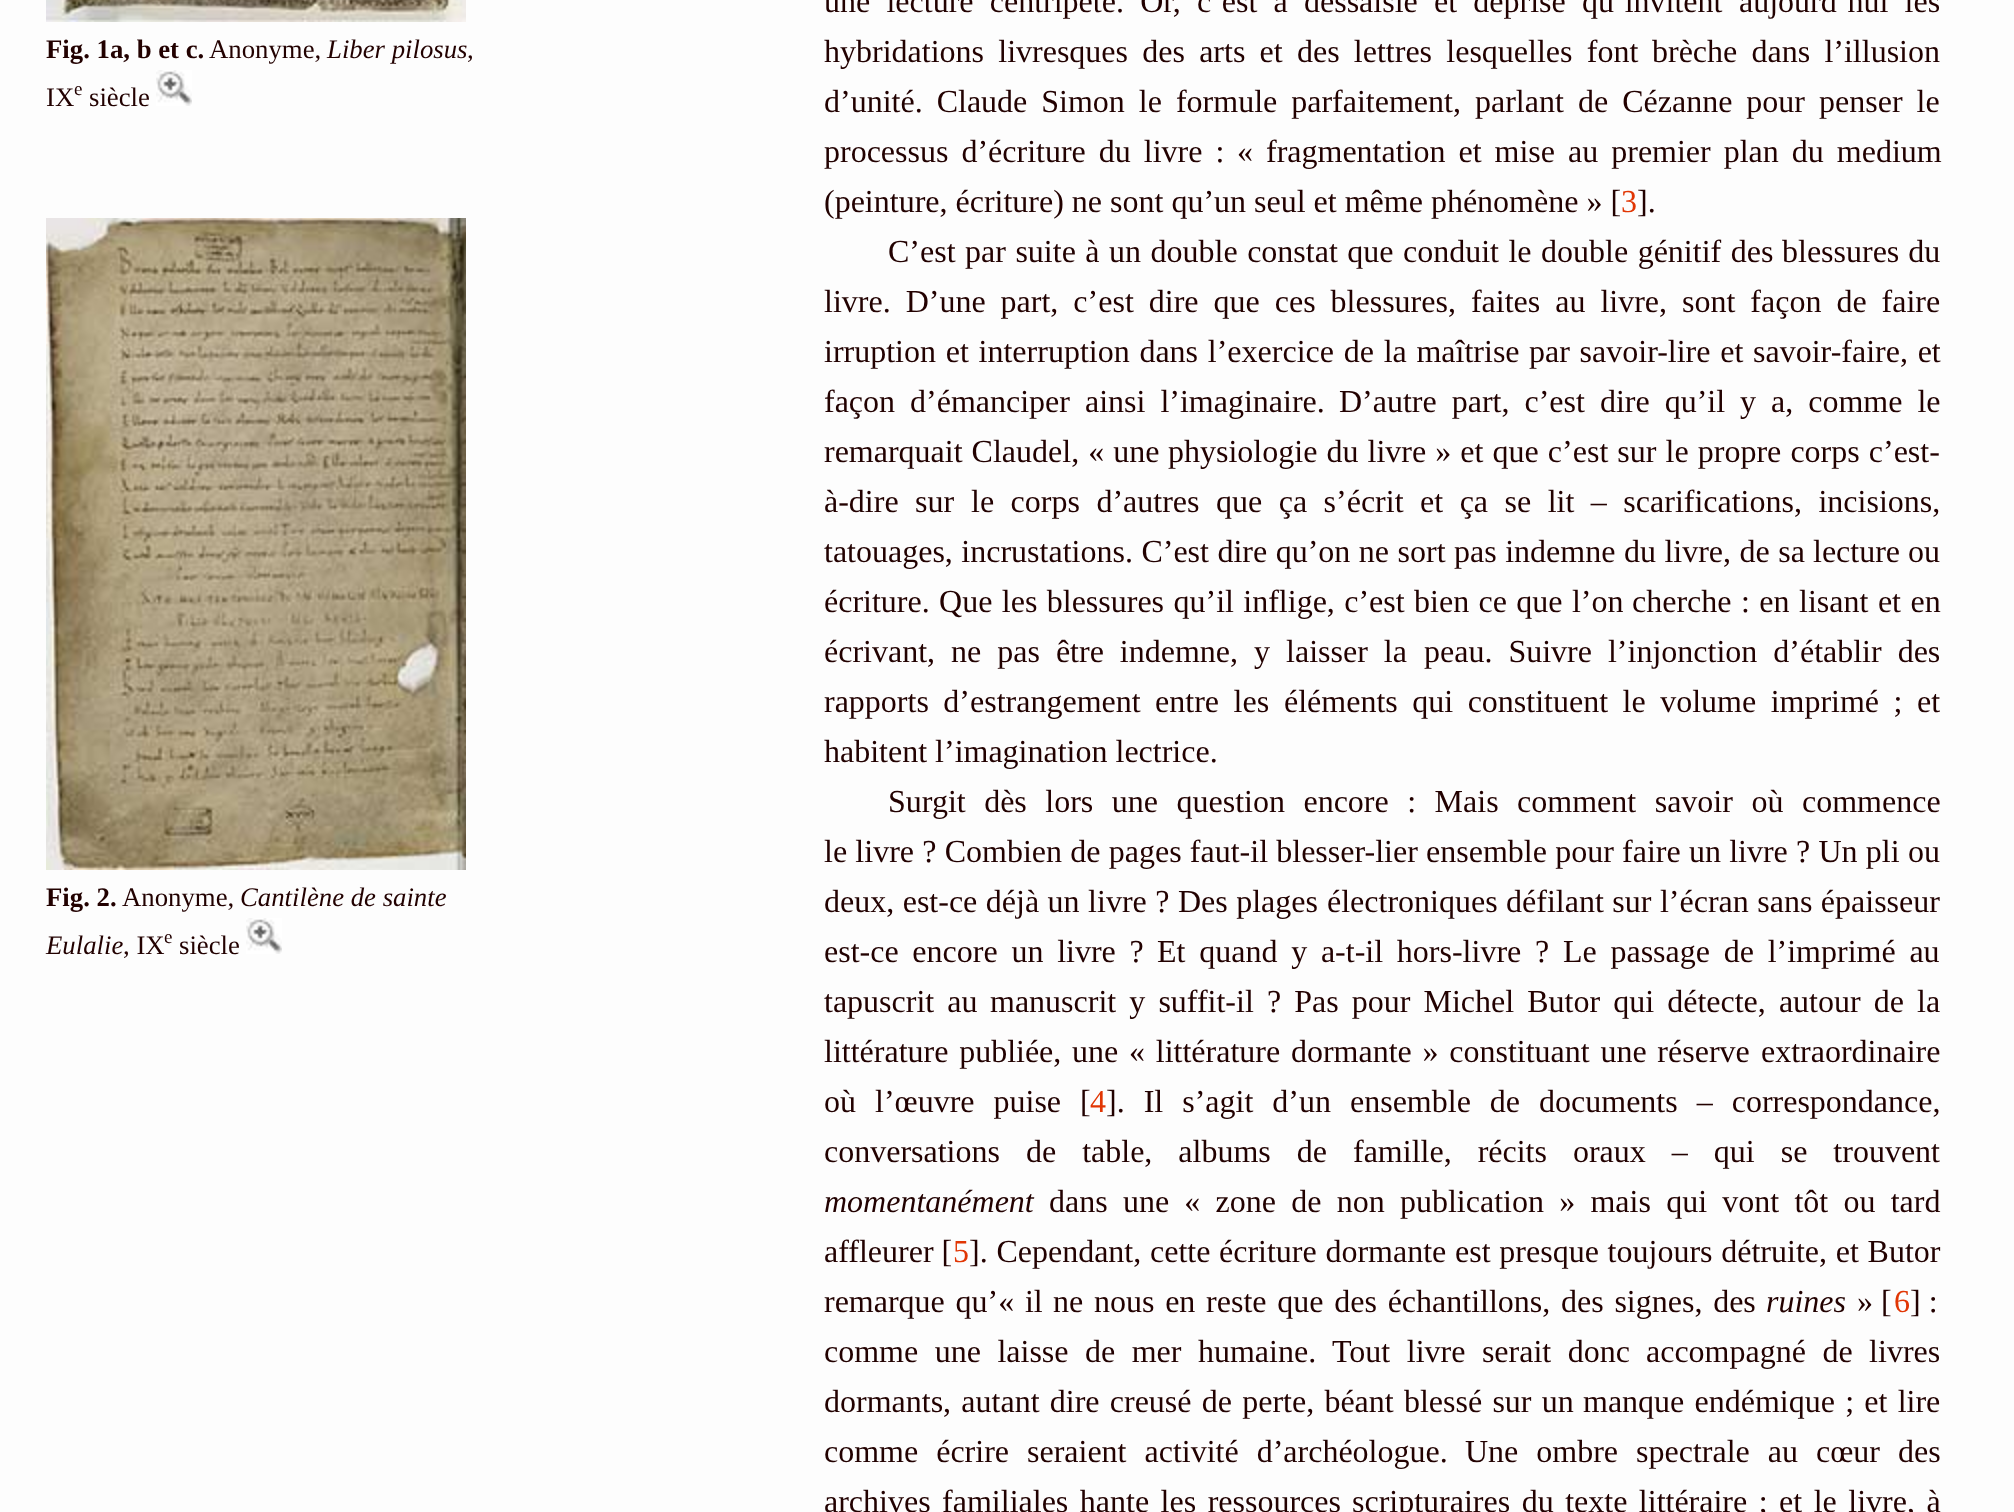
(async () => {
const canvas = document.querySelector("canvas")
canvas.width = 2014
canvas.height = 1512
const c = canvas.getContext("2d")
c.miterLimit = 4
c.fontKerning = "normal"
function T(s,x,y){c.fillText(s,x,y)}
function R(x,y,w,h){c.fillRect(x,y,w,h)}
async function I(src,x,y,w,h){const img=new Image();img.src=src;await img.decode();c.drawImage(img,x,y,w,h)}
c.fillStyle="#fdfdfd"
R(0,0,2014,1512)
await I("1.png",46,0,420,22)
c.font="bold 26.75px Liberation Serif"
c.fillStyle="#220100"
T("Fig. 1a, b et c.",46,58)
c.font="26.75px Liberation Serif"
T("Anonyme,",209,58)
c.font="italic 26.75px Liberation Serif"
T("Liber pilosus",327,58)
c.font="26.75px Liberation Serif"
T(",",467,58)
T("IX",46,106)
c.font="19px Liberation Serif"
T("e",74,95)
c.font="26.75px Liberation Serif"
T("siècle",89,106)
await I("2.png",156,70,36,36)
await I("3.png",46,218,420,652)
c.font="bold 26.75px Liberation Serif"
T("Fig. 2.",46,906)
c.font="26.75px Liberation Serif"
T("Anonyme,",122,906)
c.font="italic 26.75px Liberation Serif"
T("Cantilène de sainte",240,906)
T("Eulalie",46,954)
c.font="26.75px Liberation Serif"
T(", IX",123,954)
c.font="19px Liberation Serif"
T("e",164,943)
c.font="26.75px Liberation Serif"
T("siècle",179,954)
await I("2.png",246,918,36,36)
c.wordSpacing="8.25px"
c.font="32px Liberation Serif"
T("une lecture centripète. Or, c’est à dessaisie et déprise qu’invitent",824,12)
T("aujourd’hui les",1739,12)
c.wordSpacing="6.25px"
T("hybridations livresques des arts et des lettres lesquelles font",824,62)
T("brèche dans l’illusion",1652,62)
c.wordSpacing="6px"
T("d’unité. Claude Simon le formule parfaitement, parlant",824,112)
T("de Cézanne pour penser le",1578,112)
c.wordSpacing="5px"
T("processus d’écriture du livre :",824,162)
T("« fragmentation et mise au premier plan du medium",1237,162)
c.wordSpacing="0px"
T("(peinture, écriture) ne sont qu’un seul et même phénomène » [",824,212)
c.fillStyle="#e13604"
T("3",1621,212)
c.fillStyle="#220100"
T("].",1637,212)
c.wordSpacing="1.5px"
T("C’est par suite à un double constat que conduit le double génitif des",888,262)
c.wordSpacing="1px"
T("blessures du",1782,262)
c.wordSpacing="7px"
T("livre. D’une part, c’est dire que ces blessures, faites au livre,",824,312)
T("sont façon de faire",1682,312)
c.wordSpacing="1.75px"
T("irruption et interruption dans l’exercice de la maîtrise",824,362)
T("par savoir-lire et savoir-faire, et",1529,362)
c.wordSpacing="7px"
T("façon d’émanciper ainsi l’imaginaire.",824,412)
T("D’autre part, c’est dire qu’il y a, comme le",1339,412)
c.wordSpacing="1px"
T("remarquait Claudel, « une",824,462)
c.wordSpacing="1.1px"
T("physiologie du livre » et que c’est sur le propre corps c’est-",1168,462)
c.wordSpacing="8.5px"
T("à-dire sur",824,512)
T("le corps d’autres que ça s’écrit et ça se lit – scarifications, incisions,",971,512)
c.wordSpacing="0.5px"
T("tatouages, incrustations. C’est dire qu’on ne sort pas indemne du livre, de sa",824,562)
c.wordSpacing="0px"
T("lecture ou",1813,562)
c.wordSpacing="1.4px"
T("écriture. Que les blessures qu’il inflige, c’est bien ce que l’on",824,612)
c.wordSpacing="1.5px"
T("cherche : en lisant et en",1632,612)
c.wordSpacing="8px"
T("écrivant, ne pas être indemne, y laisser la",824,662)
T("peau. Suivre l’injonction d’établir des",1424,662)
c.wordSpacing="6.5px"
T("rapports d’estrangement entre les",824,712)
T("éléments qui constituent le volume imprimé ; et",1284,712)
c.wordSpacing="0px"
T("habitent l’imagination lectrice.",824,762)
c.wordSpacing="10.5px"
T("Surgit dès lors une question encore : Mais comment savoir où",888,812)
c.wordSpacing="0px"
T("commence",1802,812)
c.wordSpacing="0.25px"
T("le livre ? Combien de pages faut-il blesser-lier ensemble pour faire un livre ? Un pli ou",824,862)
c.wordSpacing="0.5px"
T("deux, est-ce déjà un livre ? Des plages",824,912)
T("électroniques défilant sur l’écran sans épaisseur",1327,912)
c.wordSpacing="5.75px"
T("est-ce encore un livre ?",824,962)
T("Et quand y a-t-il hors-livre ? Le passage de l’imprimé au",1157,962)
c.wordSpacing="5.1px"
T("tapuscrit au",824,1012)
T("manuscrit y suffit-il ? Pas pour Michel Butor qui détecte, autour de la",990,1012)
c.wordSpacing="2.75px"
T("littérature publiée, une « littérature dormante » constituant une réserve",824,1062)
c.wordSpacing="0px"
T("extraordinaire",1761,1062)
c.wordSpacing="11px"
T("où l’œuvre puise [",824,1112)
c.wordSpacing="0px"
c.fillStyle="#e13604"
T("4",1090,1112)
c.wordSpacing="11px"
c.fillStyle="#220100"
T("]. Il s’agit d’un",1106,1112)
T("ensemble de documents – correspondance,",1350,1112)
c.wordSpacing="18px"
T("conversations de table, albums de",824,1162)
T("famille, récits oraux – qui se trouvent",1353,1162)
c.wordSpacing="0px"
c.font="italic 32px Liberation Serif"
T("momentanément",824,1212)
c.wordSpacing="7.25px"
c.font="32px Liberation Serif"
T("dans une « zone de non publication » mais qui vont tôt ou tard",1049,1212)
c.wordSpacing="0px"
T("affleurer [",824,1262)
c.fillStyle="#e13604"
T("5",953,1262)
c.wordSpacing="0.75px"
c.fillStyle="#220100"
T("]. Cependant, cette",969,1262)
T("écriture dormante est presque toujours détruite, et Butor",1219,1262)
c.wordSpacing="2.75px"
T("remarque qu’« il",824,1312)
T("ne nous en reste que des échantillons, des signes, des",1053,1312)
c.wordSpacing="0px"
c.font="italic 32px Liberation Serif"
T("ruines",1766,1312)
c.font="32px Liberation Serif"
T("» [",1857,1312)
c.fillStyle="#e13604"
T("6",1894,1312)
c.fillStyle="#220100"
T("] :",1910,1312)
c.wordSpacing="8.5px"
T("comme une laisse de mer humaine. Tout livre serait donc",824,1362)
T("accompagné de livres",1646,1362)
c.wordSpacing="2.25px"
T("dormants, autant dire creusé de perte, béant blessé sur un",824,1412)
T("manque endémique ; et lire",1583,1412)
c.wordSpacing="10px"
T("comme écrire seraient activité d’archéologue.",824,1462)
T("Une ombre spectrale au cœur des",1465,1462)
c.wordSpacing="3.5px"
T("archives familiales hante les ressources",824,1512)
T("scripturaires du texte littéraire ; et le livre, à",1352,1512)
})()
